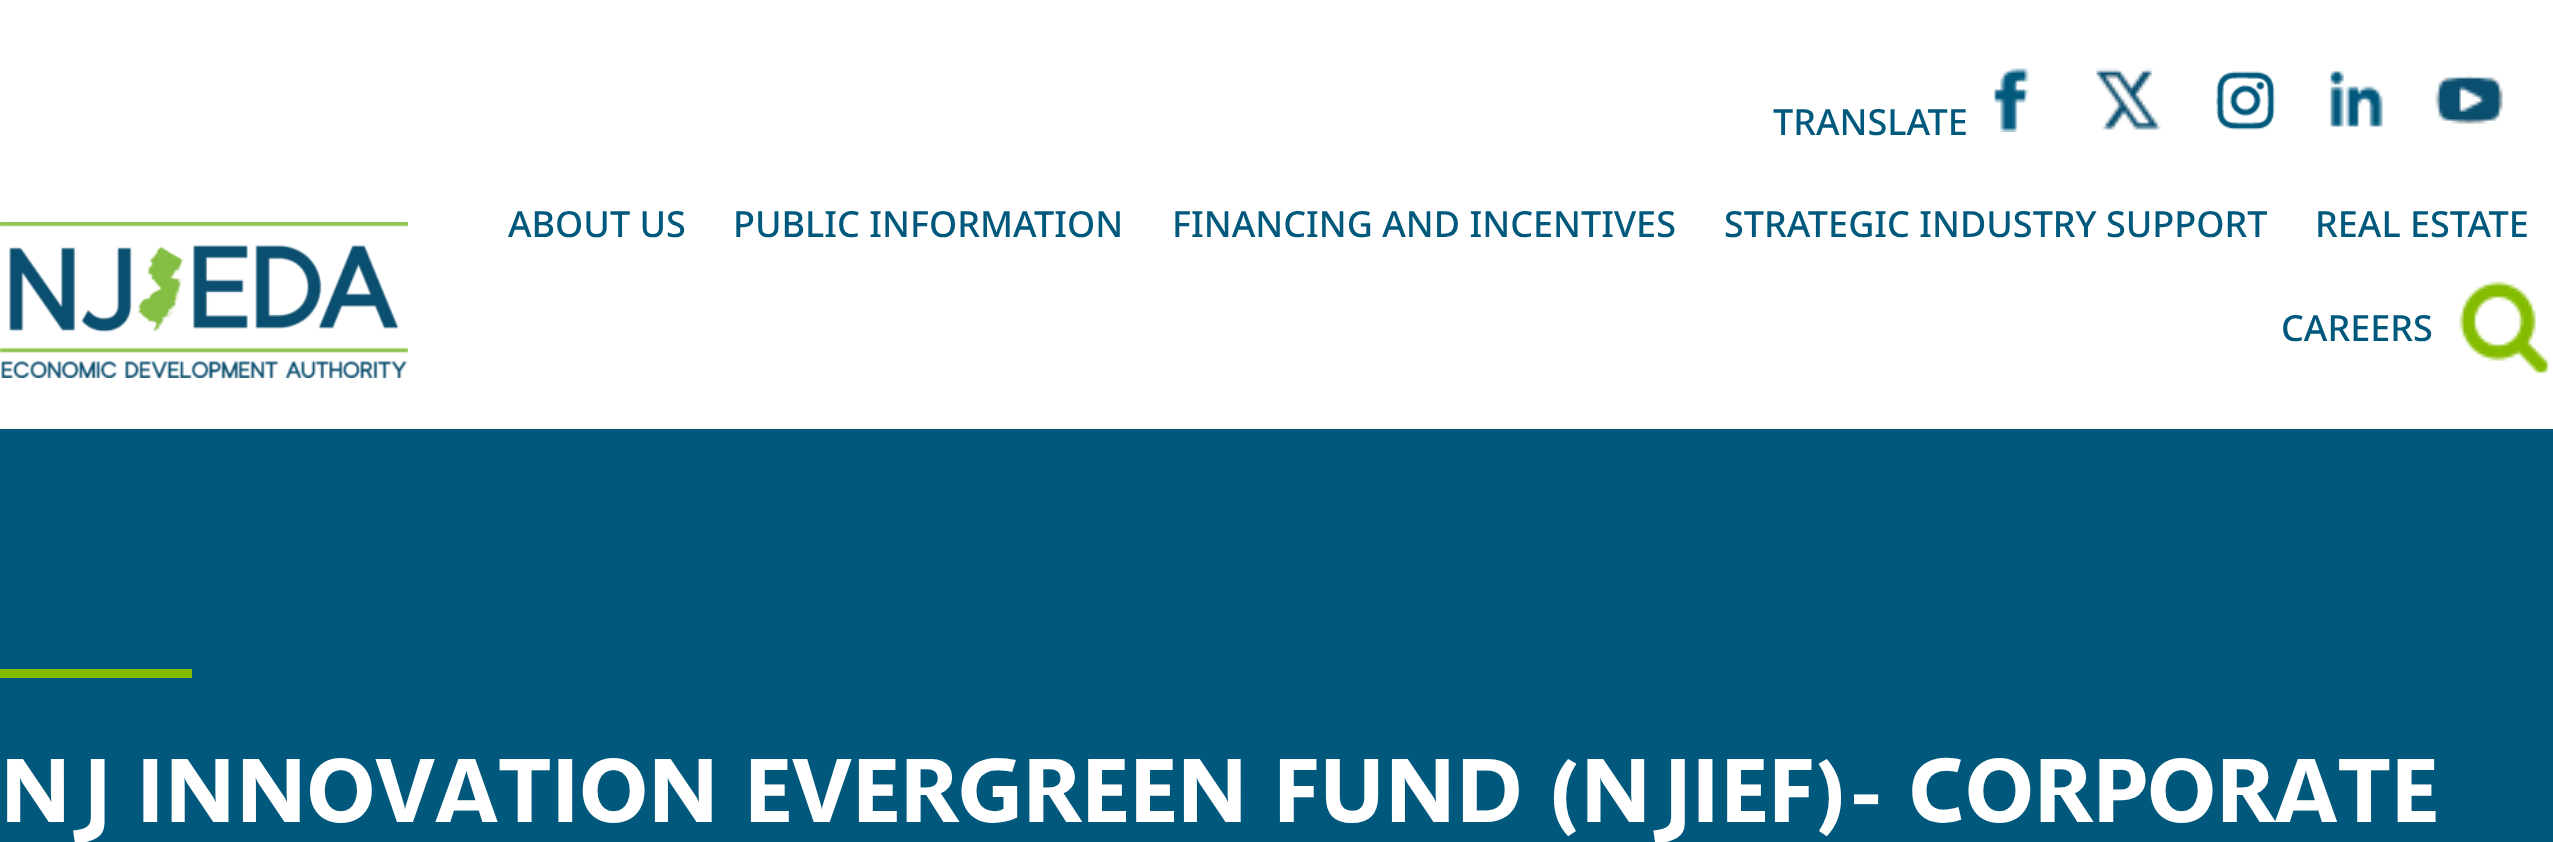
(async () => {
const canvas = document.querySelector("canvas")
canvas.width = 2553
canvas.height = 842
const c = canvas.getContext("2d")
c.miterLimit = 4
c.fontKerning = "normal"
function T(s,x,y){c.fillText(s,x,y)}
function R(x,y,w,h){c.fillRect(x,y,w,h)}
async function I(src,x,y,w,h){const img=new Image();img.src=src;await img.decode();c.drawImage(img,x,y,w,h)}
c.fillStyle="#fff"
R(0,0,2553,842)
c.font="500 36px Noto Sans"
c.fillStyle="#00597c"
T("TRANSLATE",1773,135)
await I("1.png",1994,68,35,64)
await I("2.png",2096,68,65,62)
await I("3.png",2216,71,59,59)
await I("4.png",2330,69,53,58)
await I("5.png",2435,75,68,49)
await I("6.png",0,222,408,156)
T("ABOUT US",508,237)
T("PUBLIC INFORMATION",733,237)
T("FINANCING AND INCENTIVES",1172,237)
T("STRATEGIC INDUSTRY SUPPORT",1724,237)
T("REAL ESTATE",2315,237)
T("CAREERS",2281,341)
await I("7.png",2459,281,92,94)
R(0,429,2553,413)
c.fillStyle="#84bd00"
R(0,669,192,9)
c.font="bold 90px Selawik"
c.fillStyle="#fff"
T("NJ INNOVATION EVERGREEN FUND (NJIEF)- CORPORATE",0,822)
})()
